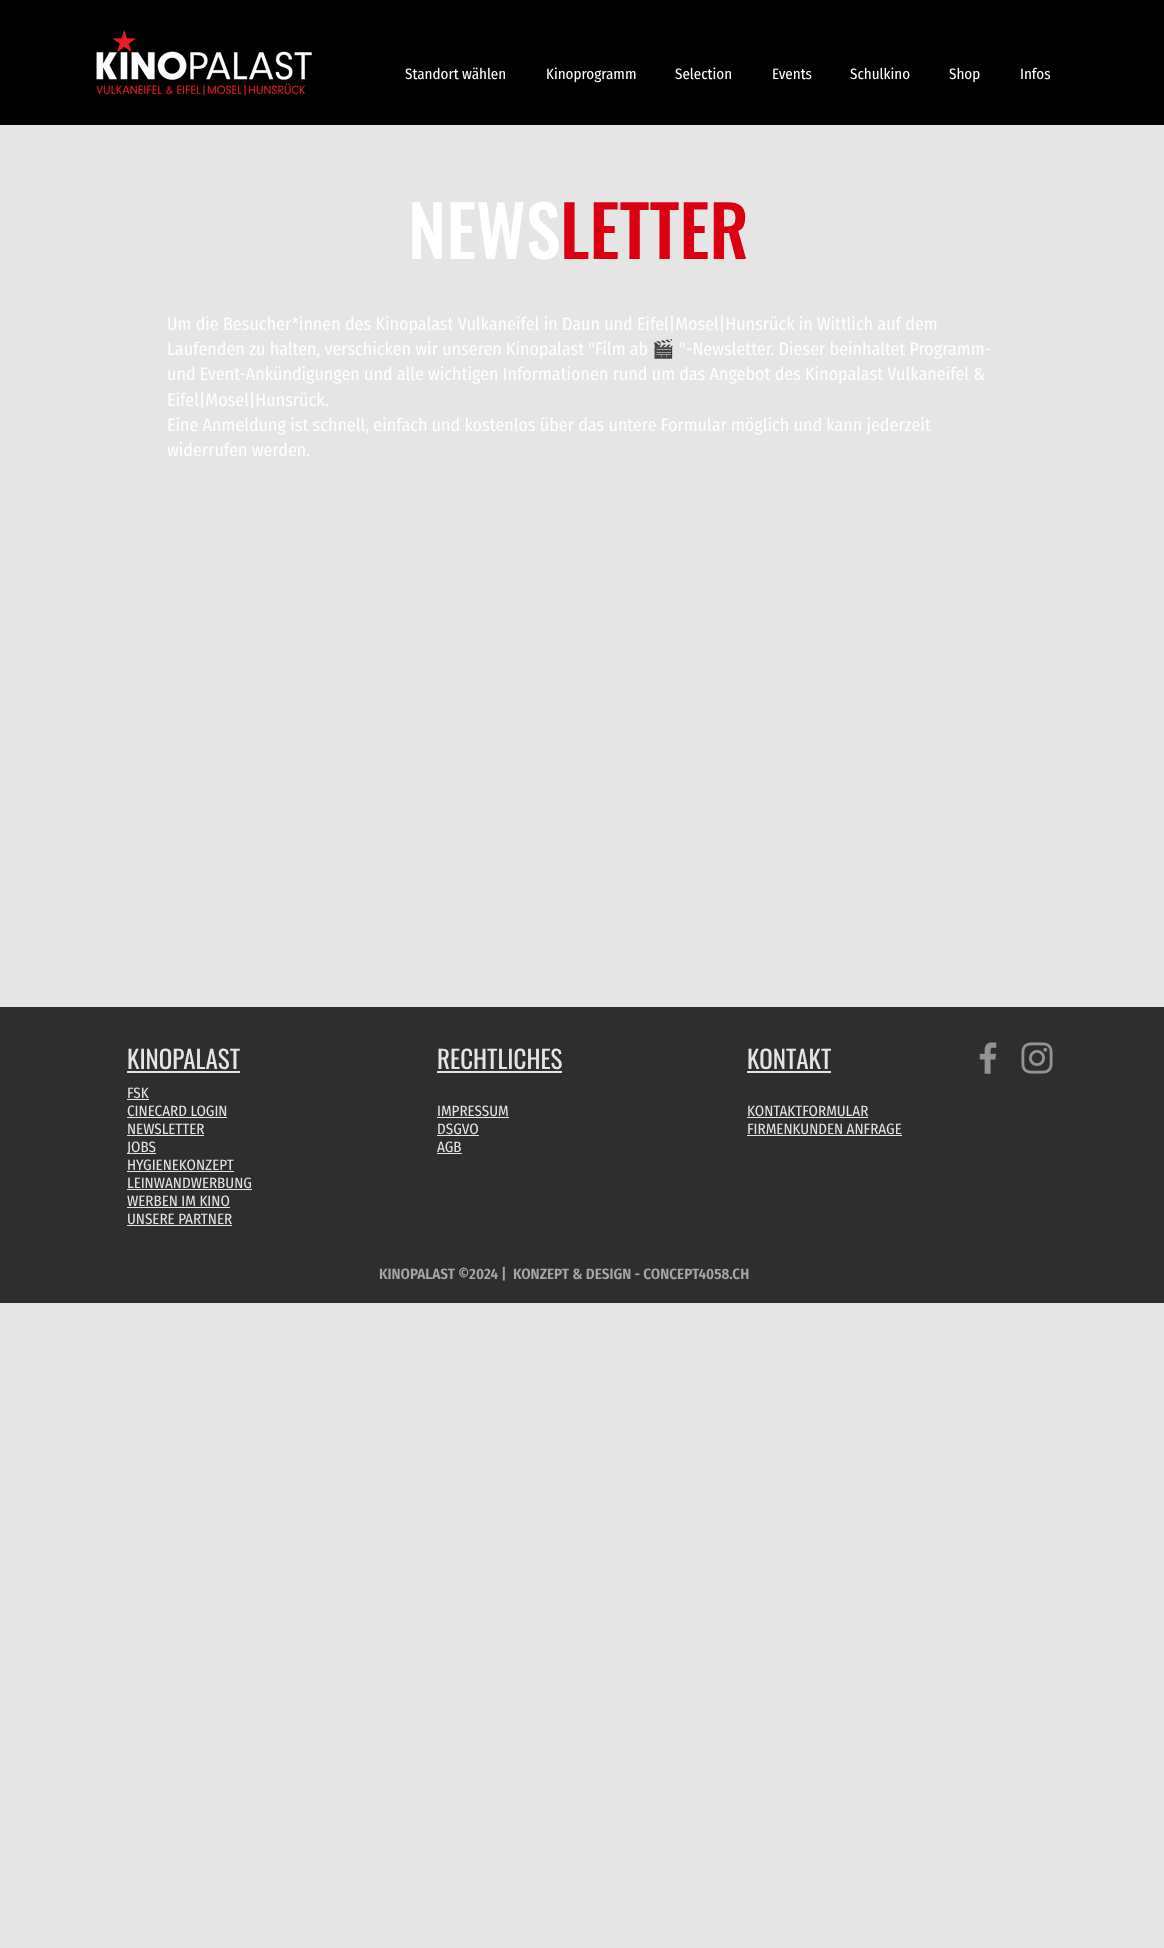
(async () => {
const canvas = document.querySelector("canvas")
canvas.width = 1164
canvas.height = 1948
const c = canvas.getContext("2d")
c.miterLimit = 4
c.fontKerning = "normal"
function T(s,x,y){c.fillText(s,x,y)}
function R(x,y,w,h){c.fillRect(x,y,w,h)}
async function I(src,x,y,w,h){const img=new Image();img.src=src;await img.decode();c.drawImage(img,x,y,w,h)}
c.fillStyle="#e5e5e5"
R(0,0,1164,1948)
c.fillStyle="#000"
R(0,0,1164,125)
await I("1.png",96,30,216,66)
c.font="15px Fira Sans Condensed"
c.fillStyle="#fff"
T("Standort wählen",405,79)
T("Kinoprogramm",546,79)
T("Selection",675,79)
T("Events",772,79)
T("Schulkino",850,79)
T("Shop",949,79)
T("Infos",1020,79)
c.font="500 70px Oswald"
T("NEWS",408,259)
c.fillStyle="#da0012"
T("LETTER",560,259)
c.font="18px Fira Sans Condensed"
c.fillStyle="#fff"
T("Um die Besucher*innen des Kinopalast Vulkaneifel in Daun und Eifel|Mosel|Hunsrück in Wittlich auf dem",167,330)
T("Laufenden zu halten, verschicken wir unseren Kinopalast \"Film ab",167,355)
c.font="18px Noto Color Emoji"
T("🎬",652,355)
c.font="18px Fira Sans Condensed"
T("\"-Newsletter. Dieser beinhaltet Programm-",679,355)
T("und Event-Ankündigungen und alle wichtigen Informationen rund um das Angebot des Kinopalast Vulkaneifel &",167,380)
T("Eifel|Mosel|Hunsrück.",167,406)
T("Eine Anmeldung ist schnell, einfach und kostenlos über das untere Formular möglich und kann jederzeit",167,431)
T("widerrufen werden.",167,456)
c.fillStyle="#2f2e2e"
R(0,1007,1164,296)
c.font="25px Oswald"
c.fillStyle="#e5e5e5"
T("KINOPALAST",127,1069)
R(127,1071,113,2)
T("RECHTLICHES",437,1069)
R(437,1071,125,2)
T("KONTAKT",747,1069)
R(747,1071,84,2)
c.font="15px Fira Sans Condensed"
T("FSK",127,1098)
R(127,1099,22,1)
T("CINECARD LOGIN",127,1116)
R(127,1117,100,1)
T("NEWSLETTER",127,1134)
R(127,1135,77,1)
R(127,1153,29,1)
T("JOBS",127,1152)
T("HYGIENEKONZEPT",127,1170)
R(127,1171,107,1)
T("LEINWANDWERBUNG",127,1188)
R(127,1189,125,1)
T("WERBEN IM KINO",127,1206)
R(127,1207,103,1)
T("UNSERE PARTNER",127,1224)
R(127,1225,105,1)
T("IMPRESSUM",437,1116)
R(437,1117,72,1)
T("DSGVO",437,1134)
R(437,1135,42,1)
T("AGB",437,1152)
R(437,1153,25,1)
T("KONTAKTFORMULAR",747,1116)
R(747,1117,121,1)
T("FIRMENKUNDEN ANFRAGE",747,1134)
R(747,1135,155,1)
c.font="600 15px Fira Sans Condensed"
c.fillStyle="#a6a6a6"
T("KINOPALAST ©2024 |  KONZEPT & DESIGN - CONCEPT4058.CH",379,1279)
await I("2.png",979,1042,18,32)
await I("3.png",1021,1042,32,32)
})()
